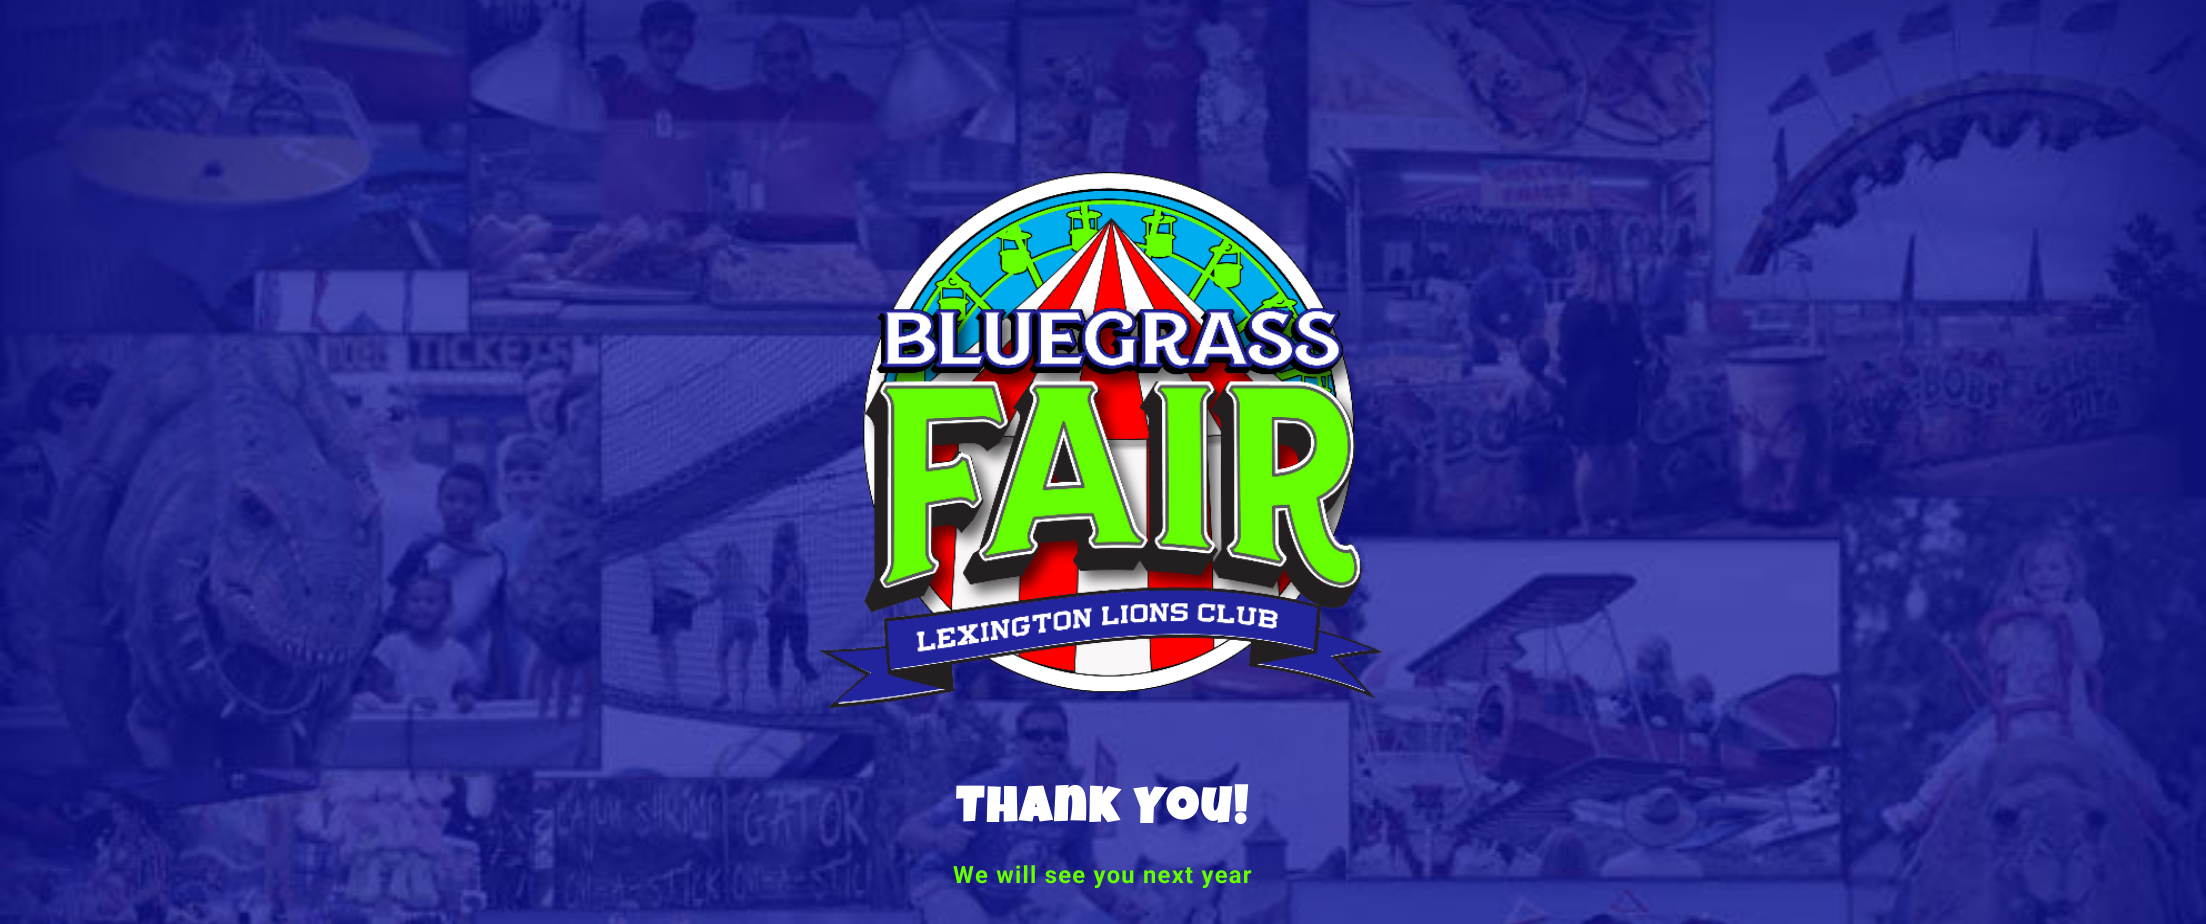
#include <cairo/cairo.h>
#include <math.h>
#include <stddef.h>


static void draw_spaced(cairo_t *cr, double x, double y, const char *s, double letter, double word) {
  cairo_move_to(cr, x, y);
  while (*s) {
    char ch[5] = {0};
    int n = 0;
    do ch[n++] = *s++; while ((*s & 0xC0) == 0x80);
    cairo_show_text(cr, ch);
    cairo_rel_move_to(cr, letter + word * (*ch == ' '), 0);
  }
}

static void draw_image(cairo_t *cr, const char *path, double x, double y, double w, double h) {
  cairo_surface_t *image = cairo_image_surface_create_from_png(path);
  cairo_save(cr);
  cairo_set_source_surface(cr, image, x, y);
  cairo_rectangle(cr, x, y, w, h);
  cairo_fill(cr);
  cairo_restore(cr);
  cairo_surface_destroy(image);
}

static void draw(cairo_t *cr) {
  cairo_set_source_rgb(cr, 1, 1, 1);
  cairo_paint(cr);
  draw_image(cr, "images/1.png", 0, 0, 2206, 924);
  draw_image(cr, "images/2.png", 819, 172, 565, 536);
  cairo_select_font_face(cr, "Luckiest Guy", CAIRO_FONT_SLANT_NORMAL, CAIRO_FONT_WEIGHT_BOLD);
  cairo_set_font_size(cr, 50);
  cairo_set_source_rgb(cr, 1, 1, 1);
  draw_spaced(cr, 956, 822, "Thank You!", 2.5, 0);
  cairo_select_font_face(cr, "Roboto", CAIRO_FONT_SLANT_NORMAL, CAIRO_FONT_WEIGHT_BOLD);
  cairo_set_font_size(cr, 23.75);
  cairo_set_source_rgb(cr, 101 / 255.0, 1, 0);
  draw_spaced(cr, 953, 883, "We will see you next year", 1.25, 0);
}

int main(void) {
  cairo_surface_t *surface = cairo_image_surface_create(CAIRO_FORMAT_RGB24, 2206, 924);
  cairo_t *cr = cairo_create(surface);
  cairo_font_options_t *options = cairo_font_options_create();
  cairo_font_options_set_hint_metrics(options, CAIRO_HINT_METRICS_OFF);
  cairo_font_options_set_hint_style(options, CAIRO_HINT_STYLE_NONE);
  cairo_set_font_options(cr, options);
  cairo_set_miter_limit(cr, 4);
  draw(cr);
  cairo_surface_write_to_png(surface, "out.png");
  cairo_font_options_destroy(options);
  cairo_destroy(cr);
  cairo_surface_destroy(surface);
  return 0;
}
